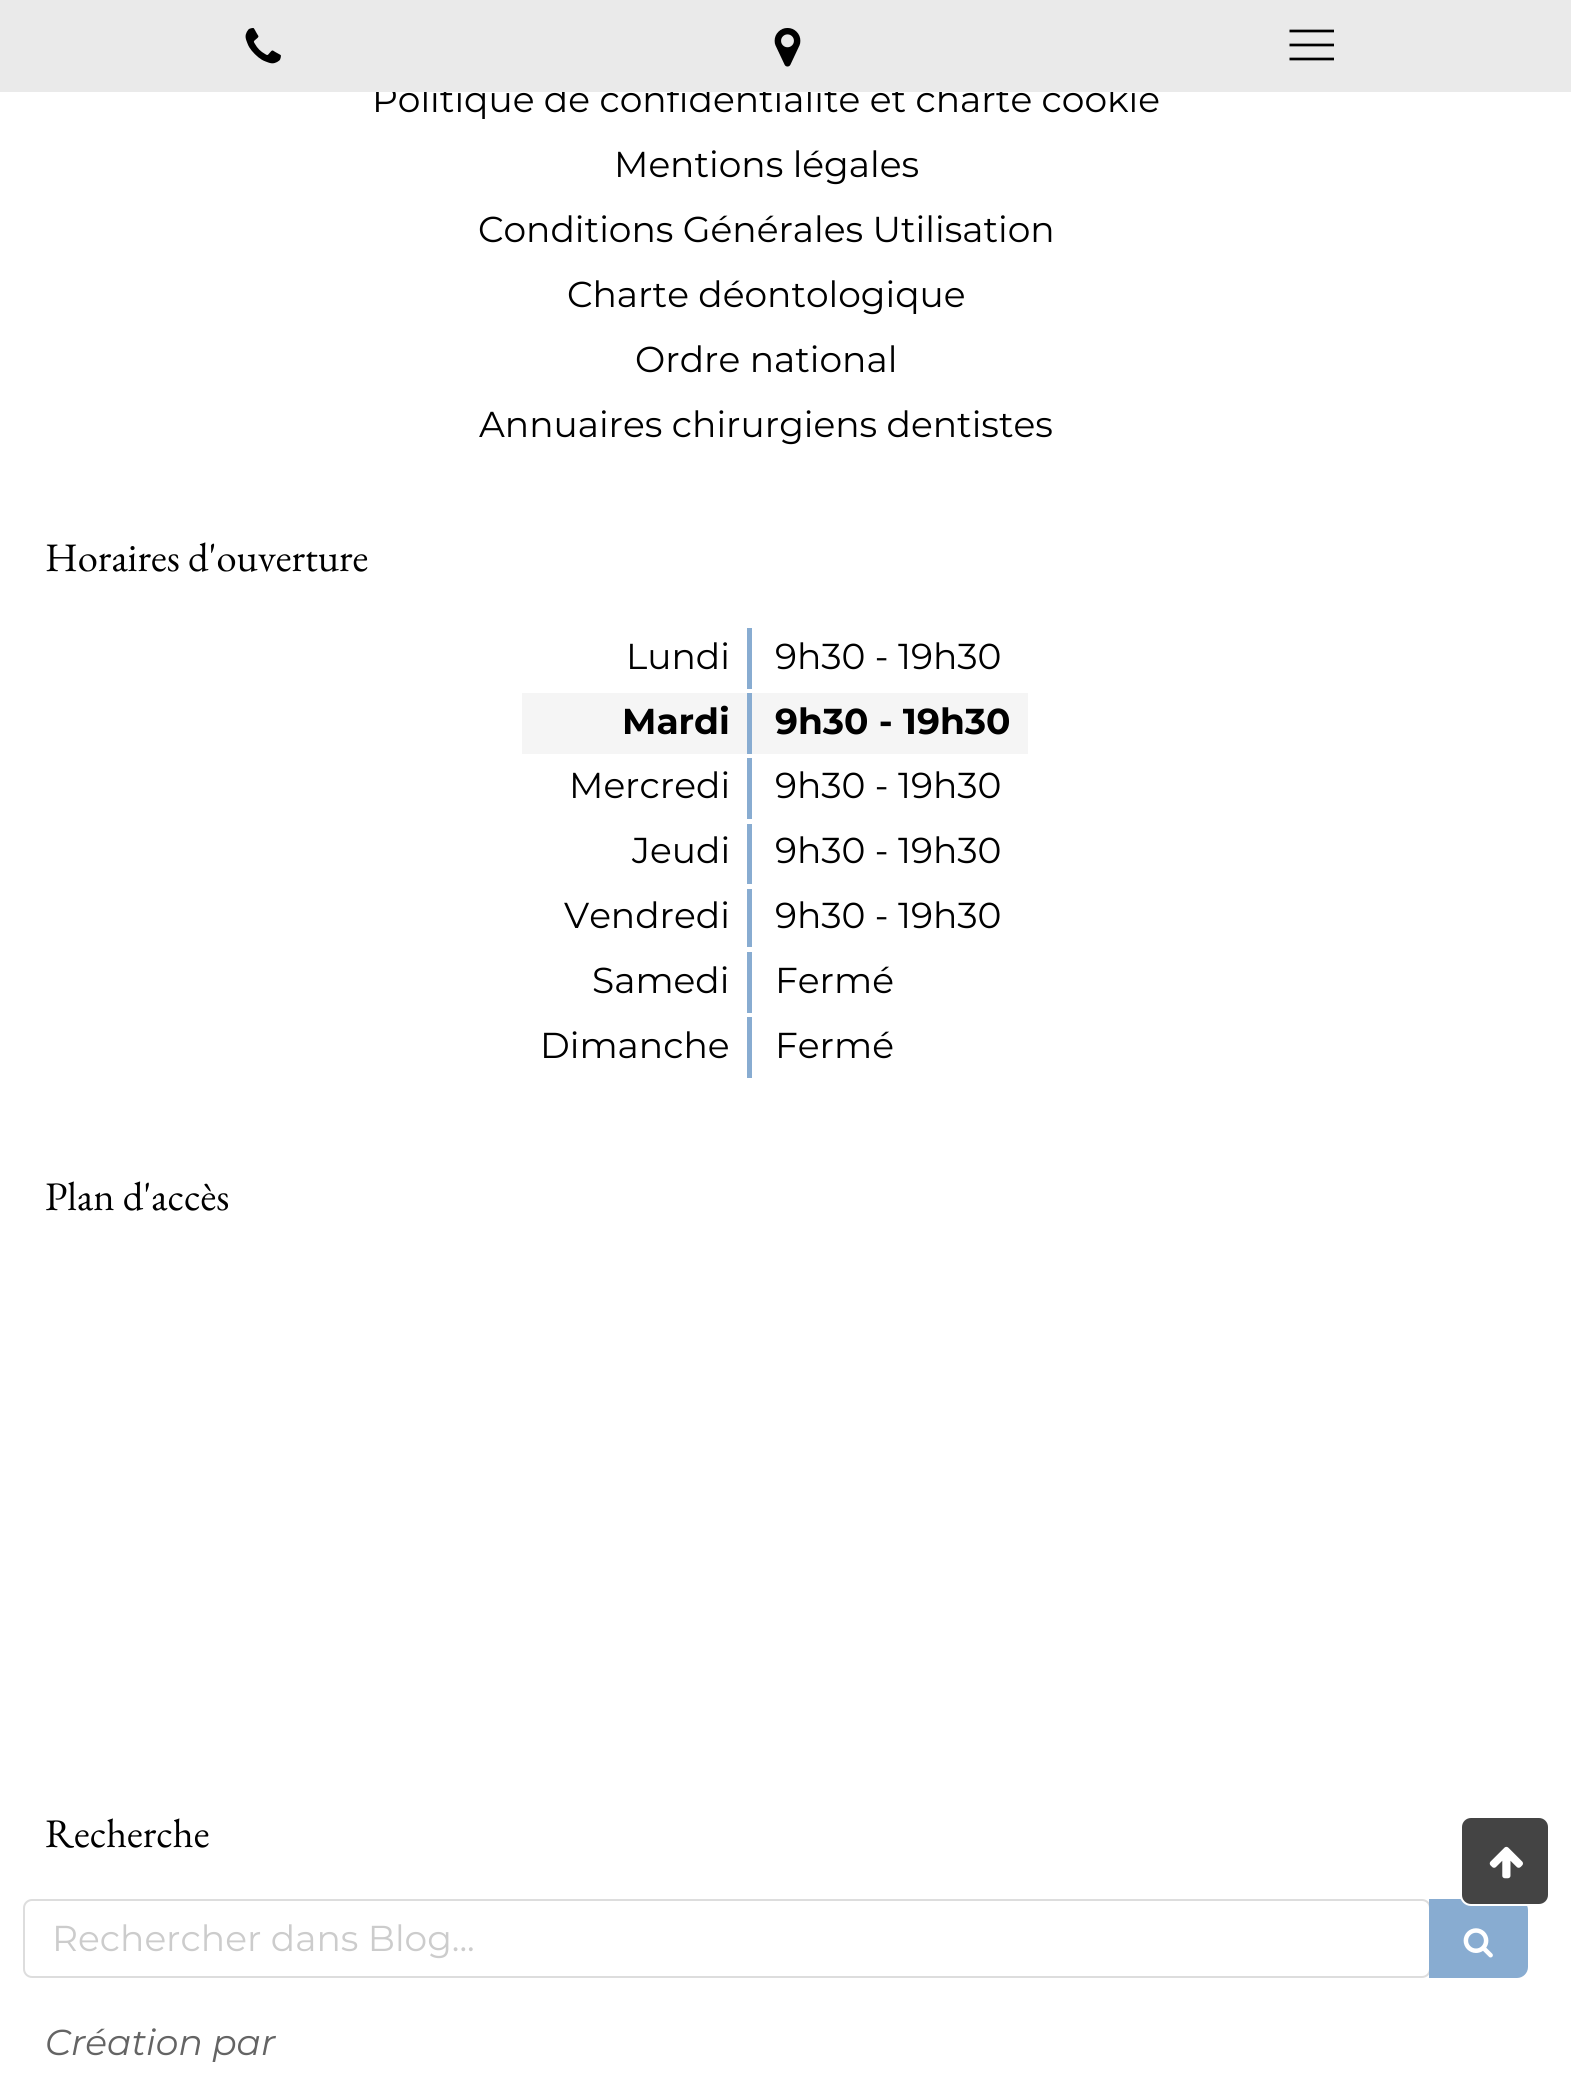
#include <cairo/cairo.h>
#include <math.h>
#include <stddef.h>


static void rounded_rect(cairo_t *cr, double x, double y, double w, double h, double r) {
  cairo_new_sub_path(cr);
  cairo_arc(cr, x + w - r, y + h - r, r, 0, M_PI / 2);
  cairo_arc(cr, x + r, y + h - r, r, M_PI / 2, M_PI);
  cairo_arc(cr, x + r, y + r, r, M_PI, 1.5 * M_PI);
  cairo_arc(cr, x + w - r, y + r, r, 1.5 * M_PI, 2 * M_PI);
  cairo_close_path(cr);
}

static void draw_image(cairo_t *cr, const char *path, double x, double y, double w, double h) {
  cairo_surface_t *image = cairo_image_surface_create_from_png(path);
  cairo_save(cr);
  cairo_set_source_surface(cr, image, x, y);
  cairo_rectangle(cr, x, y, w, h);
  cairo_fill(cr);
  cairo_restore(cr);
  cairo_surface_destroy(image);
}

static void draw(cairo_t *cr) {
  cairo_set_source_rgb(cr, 1, 1, 1);
  cairo_paint(cr);
  cairo_set_source_rgb(cr, 136 / 255.0, 172 / 255.0, 209 / 255.0);
  cairo_rectangle(cr, 747, 628, 5, 61);
  cairo_fill(cr);
  cairo_set_source_rgb(cr, 245 / 255.0, 245 / 255.0, 245 / 255.0);
  cairo_rectangle(cr, 522, 693, 506, 61);
  cairo_fill(cr);
  cairo_set_source_rgb(cr, 136 / 255.0, 172 / 255.0, 209 / 255.0);
  cairo_rectangle(cr, 747, 693, 5, 61);
  cairo_fill(cr);
  cairo_rectangle(cr, 747, 758, 5, 61);
  cairo_fill(cr);
  cairo_rectangle(cr, 747, 824, 5, 60);
  cairo_fill(cr);
  cairo_rectangle(cr, 747, 889, 5, 58);
  cairo_fill(cr);
  cairo_rectangle(cr, 747, 952, 5, 61);
  cairo_fill(cr);
  cairo_rectangle(cr, 747, 1017, 5, 61);
  cairo_fill(cr);
  rounded_rect(cr, 24, 1900, 1406, 77, 8);
  cairo_set_source_rgb(cr, 221 / 255.0, 221 / 255.0, 221 / 255.0);
  cairo_stroke(cr);
  cairo_set_source_rgb(cr, 136 / 255.0, 172 / 255.0, 209 / 255.0);
  cairo_new_path(cr);
  cairo_move_to(cr, 1429, 1899);
  cairo_line_to(cr, 1517, 1899);
  cairo_curve_to(cr, 1523, 1899, 1528, 1904, 1528, 1910);
  cairo_line_to(cr, 1528, 1967);
  cairo_curve_to(cr, 1528, 1973, 1523, 1978, 1517, 1978);
  cairo_line_to(cr, 1429, 1978);
  cairo_close_path(cr);
  cairo_fill(cr);
  draw_image(cr, "images/3.png", 1463, 1928, 30, 30);
  cairo_set_source_rgb(cr, 68 / 255.0, 68 / 255.0, 68 / 255.0);
  rounded_rect(cr, 1461, 1817, 88, 88, 10);
  cairo_fill_preserve(cr);
  cairo_set_source_rgb(cr, 1, 1, 1);
  cairo_stroke(cr);
  draw_image(cr, "images/4.png", 1489, 1846, 34, 33);
  cairo_select_font_face(cr, "Montserrat", CAIRO_FONT_SLANT_NORMAL, CAIRO_FONT_WEIGHT_NORMAL);
  cairo_set_font_size(cr, 36);
  cairo_set_source_rgb(cr, 0, 0, 0);
  cairo_move_to(cr, 372, 112);
  cairo_show_text(cr, "Politique de confidentialité et charte cookie");
  cairo_set_source_rgb(cr, 234 / 255.0, 234 / 255.0, 234 / 255.0);
  cairo_rectangle(cr, 0, 0, 1571, 92);
  cairo_fill(cr);
  cairo_new_path(cr);
  cairo_move_to(cr, 1289.5, 45);
  cairo_line_to(cr, 1334, 45);
  cairo_move_to(cr, 1289.5, 31);
  cairo_line_to(cr, 1334, 31);
  cairo_move_to(cr, 1289.5, 59);
  cairo_line_to(cr, 1334, 59);
  cairo_set_source_rgb(cr, 0, 0, 0);
  cairo_set_line_width(cr, 2.7);
  cairo_stroke(cr);
  draw_image(cr, "images/2.png", 774, 28, 27, 39);
  draw_image(cr, "images/1.png", 245, 28, 36, 36);
  cairo_move_to(cr, 614, 177);
  cairo_show_text(cr, "Mentions légales");
  cairo_move_to(cr, 478, 242);
  cairo_show_text(cr, "Conditions Générales Utilisation");
  cairo_move_to(cr, 567, 307);
  cairo_show_text(cr, "Charte déontologique");
  cairo_move_to(cr, 635, 372);
  cairo_show_text(cr, "Ordre national");
  cairo_move_to(cr, 479, 437);
  cairo_show_text(cr, "Annuaires chirurgiens dentistes");
  cairo_select_font_face(cr, "EB Garamond", CAIRO_FONT_SLANT_NORMAL, CAIRO_FONT_WEIGHT_NORMAL);
  cairo_set_font_size(cr, 40.5);
  cairo_move_to(cr, 45, 571);
  cairo_show_text(cr, "Horaires d'ouverture");
  cairo_select_font_face(cr, "Montserrat", CAIRO_FONT_SLANT_NORMAL, CAIRO_FONT_WEIGHT_NORMAL);
  cairo_set_font_size(cr, 36);
  cairo_move_to(cr, 626, 669);
  cairo_show_text(cr, "Lundi");
  cairo_move_to(cr, 775, 669);
  cairo_show_text(cr, "9h30 - 19h30");
  cairo_select_font_face(cr, "Montserrat", CAIRO_FONT_SLANT_NORMAL, CAIRO_FONT_WEIGHT_BOLD);
  cairo_move_to(cr, 622, 734);
  cairo_show_text(cr, "Mardi");
  cairo_move_to(cr, 775, 734);
  cairo_show_text(cr, "9h30 - 19h30");
  cairo_select_font_face(cr, "Montserrat", CAIRO_FONT_SLANT_NORMAL, CAIRO_FONT_WEIGHT_NORMAL);
  cairo_move_to(cr, 569, 798);
  cairo_show_text(cr, "Mercredi");
  cairo_move_to(cr, 775, 798);
  cairo_show_text(cr, "9h30 - 19h30");
  cairo_move_to(cr, 632, 863);
  cairo_show_text(cr, "Jeudi");
  cairo_move_to(cr, 775, 863);
  cairo_show_text(cr, "9h30 - 19h30");
  cairo_move_to(cr, 564, 928);
  cairo_show_text(cr, "Vendredi");
  cairo_move_to(cr, 775, 928);
  cairo_show_text(cr, "9h30 - 19h30");
  cairo_move_to(cr, 592, 993);
  cairo_show_text(cr, "Samedi");
  cairo_move_to(cr, 775, 993);
  cairo_show_text(cr, "Fermé");
  cairo_move_to(cr, 540, 1058);
  cairo_show_text(cr, "Dimanche");
  cairo_move_to(cr, 775, 1058);
  cairo_show_text(cr, "Fermé");
  cairo_select_font_face(cr, "EB Garamond", CAIRO_FONT_SLANT_NORMAL, CAIRO_FONT_WEIGHT_NORMAL);
  cairo_set_font_size(cr, 40.5);
  cairo_move_to(cr, 45, 1210);
  cairo_show_text(cr, "Plan d'accès");
  cairo_move_to(cr, 45, 1847);
  cairo_show_text(cr, "Recherche");
  cairo_select_font_face(cr, "Montserrat", CAIRO_FONT_SLANT_NORMAL, CAIRO_FONT_WEIGHT_NORMAL);
  cairo_set_font_size(cr, 36);
  cairo_set_source_rgb(cr, 204 / 255.0, 204 / 255.0, 204 / 255.0);
  cairo_move_to(cr, 52, 1951);
  cairo_show_text(cr, "Rechercher dans Blog...");
  cairo_select_font_face(cr, "Montserrat", CAIRO_FONT_SLANT_ITALIC, CAIRO_FONT_WEIGHT_NORMAL);
  cairo_set_source_rgb(cr, 100 / 255.0, 100 / 255.0, 100 / 255.0);
  cairo_move_to(cr, 45, 2055);
  cairo_show_text(cr, "Création par");
}

int main(void) {
  cairo_surface_t *surface = cairo_image_surface_create(CAIRO_FORMAT_RGB24, 1571, 2084);
  cairo_t *cr = cairo_create(surface);
  cairo_font_options_t *options = cairo_font_options_create();
  cairo_font_options_set_hint_metrics(options, CAIRO_HINT_METRICS_OFF);
  cairo_font_options_set_hint_style(options, CAIRO_HINT_STYLE_NONE);
  cairo_set_font_options(cr, options);
  cairo_set_miter_limit(cr, 4);
  draw(cr);
  cairo_surface_write_to_png(surface, "out.png");
  cairo_font_options_destroy(options);
  cairo_destroy(cr);
  cairo_surface_destroy(surface);
  return 0;
}
